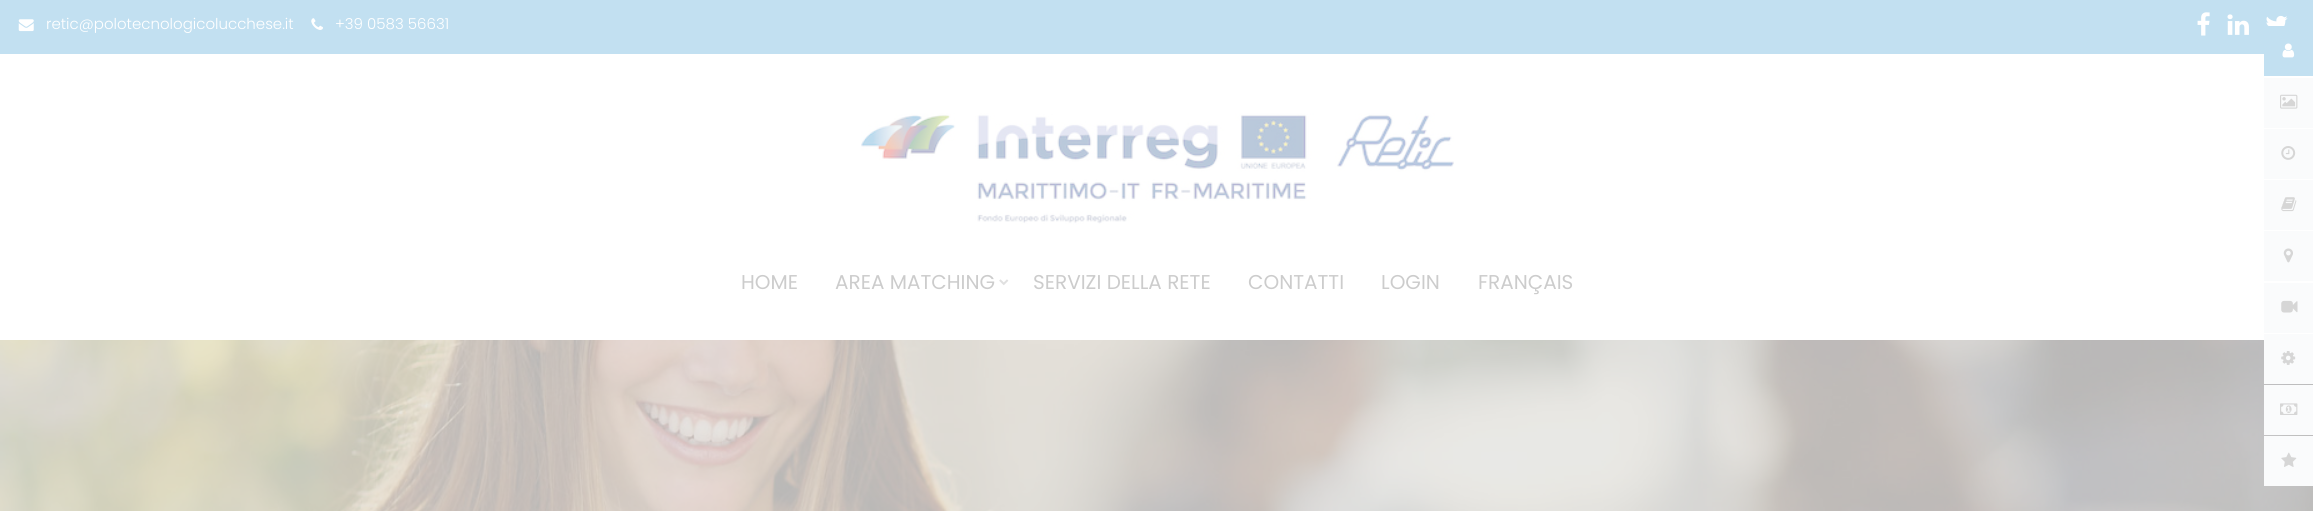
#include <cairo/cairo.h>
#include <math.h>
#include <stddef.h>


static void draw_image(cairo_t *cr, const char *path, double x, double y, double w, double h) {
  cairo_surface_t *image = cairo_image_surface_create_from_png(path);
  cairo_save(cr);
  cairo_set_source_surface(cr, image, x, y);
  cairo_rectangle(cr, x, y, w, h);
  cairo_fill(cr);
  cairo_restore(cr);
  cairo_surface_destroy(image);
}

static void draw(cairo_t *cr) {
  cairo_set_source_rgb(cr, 1, 1, 1);
  cairo_paint(cr);
  cairo_set_source_rgb(cr, 194 / 255.0, 224 / 255.0, 241 / 255.0);
  cairo_rectangle(cr, 0, 0, 2313, 54);
  cairo_fill(cr);
  draw_image(cr, "images/1.png", 18, 19, 16, 13);
  draw_image(cr, "images/2.png", 311, 18, 12, 12);
  draw_image(cr, "images/3.png", 2197, 12, 13, 24);
  draw_image(cr, "images/4.png", 2227, 14, 22, 21);
  draw_image(cr, "images/5.png", 2266, 15, 22, 11);
  draw_image(cr, "images/6.png", 861, 113, 593, 112);
  draw_image(cr, "images/7.png", 999, 279, 10, 7);
  cairo_rectangle(cr, 2264, 54, 49, 22);
  cairo_fill(cr);
  draw_image(cr, "images/8.png", 2282, 43, 13, 15);
  cairo_set_source_rgb(cr, 250 / 255.0, 251 / 255.0, 252 / 255.0);
  cairo_rectangle(cr, 2264, 78, 49, 50);
  cairo_fill(cr);
  draw_image(cr, "images/9.png", 2280, 94, 18, 15);
  cairo_rectangle(cr, 2264, 129, 49, 50);
  cairo_fill(cr);
  draw_image(cr, "images/10.png", 2281, 146, 15, 14);
  cairo_rectangle(cr, 2264, 180, 49, 50);
  cairo_fill(cr);
  draw_image(cr, "images/11.png", 2281, 197, 16, 15);
  cairo_rectangle(cr, 2264, 231, 49, 50);
  cairo_fill(cr);
  draw_image(cr, "images/12.png", 2283, 248, 10, 15);
  cairo_rectangle(cr, 2264, 283, 49, 50);
  cairo_fill(cr);
  draw_image(cr, "images/13.png", 2281, 300, 17, 13);
  draw_image(cr, "images/17.png", 0, 340, 2313, 171);
  cairo_rectangle(cr, 2264, 334, 49, 50);
  cairo_fill(cr);
  draw_image(cr, "images/14.png", 2281, 351, 15, 14);
  cairo_rectangle(cr, 2264, 385, 49, 50);
  cairo_fill(cr);
  draw_image(cr, "images/15.png", 2280, 403, 18, 12);
  cairo_rectangle(cr, 2264, 436, 49, 50);
  cairo_fill(cr);
  draw_image(cr, "images/16.png", 2281, 452, 16, 15);
  cairo_select_font_face(cr, "Poppins Light", CAIRO_FONT_SLANT_NORMAL, CAIRO_FONT_WEIGHT_NORMAL);
  cairo_set_font_size(cr, 15);
  cairo_set_source_rgb(cr, 1, 1, 1);
  cairo_move_to(cr, 46, 29);
  cairo_show_text(cr, "retic@polotecnologicolucchese.it");
  cairo_move_to(cr, 335, 29);
  cairo_show_text(cr, "+39 0583 56631");
  cairo_select_font_face(cr, "Poppins", CAIRO_FONT_SLANT_NORMAL, CAIRO_FONT_WEIGHT_NORMAL);
  cairo_set_font_size(cr, 20);
  cairo_set_source_rgb(cr, 204 / 255.0, 204 / 255.0, 204 / 255.0);
  cairo_move_to(cr, 741, 289);
  cairo_show_text(cr, "HOME");
  cairo_move_to(cr, 835, 289);
  cairo_show_text(cr, "AREA MATCHING");
  cairo_move_to(cr, 1033, 289);
  cairo_show_text(cr, "SERVIZI DELLA RETE");
  cairo_move_to(cr, 1248, 289);
  cairo_show_text(cr, "CONTATTI");
  cairo_move_to(cr, 1381, 289);
  cairo_show_text(cr, "LOGIN");
  cairo_move_to(cr, 1478, 289);
  cairo_show_text(cr, "FRANÇAIS");
}

int main(void) {
  cairo_surface_t *surface = cairo_image_surface_create(CAIRO_FORMAT_RGB24, 2313, 511);
  cairo_t *cr = cairo_create(surface);
  cairo_font_options_t *options = cairo_font_options_create();
  cairo_font_options_set_hint_metrics(options, CAIRO_HINT_METRICS_OFF);
  cairo_font_options_set_hint_style(options, CAIRO_HINT_STYLE_NONE);
  cairo_set_font_options(cr, options);
  cairo_set_miter_limit(cr, 4);
  draw(cr);
  cairo_surface_write_to_png(surface, "out.png");
  cairo_font_options_destroy(options);
  cairo_destroy(cr);
  cairo_surface_destroy(surface);
  return 0;
}
